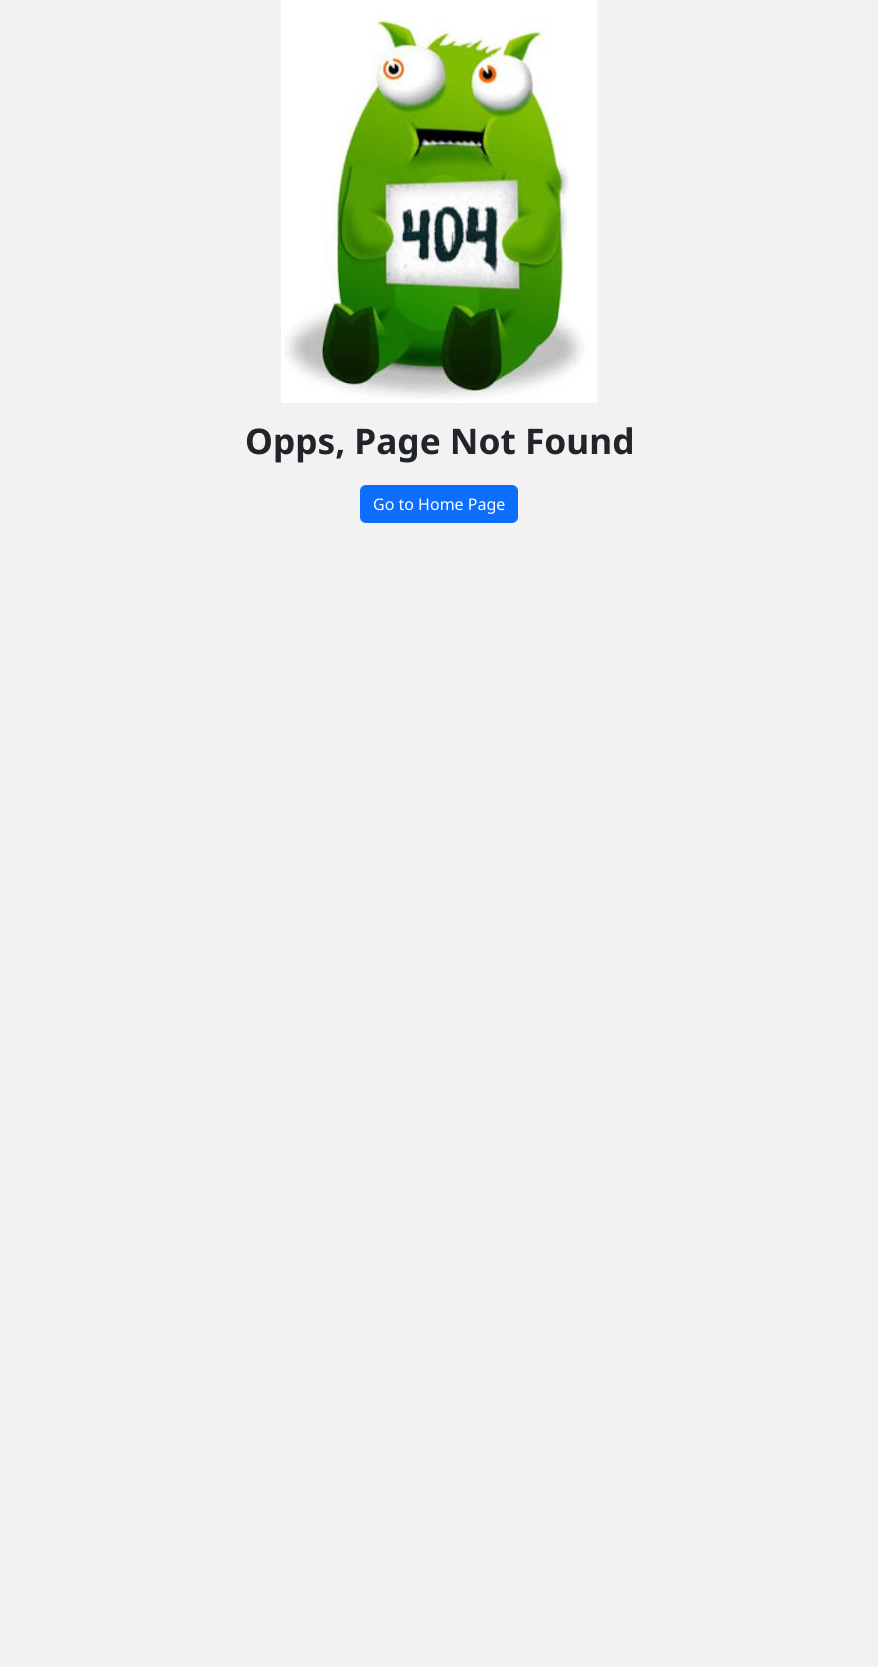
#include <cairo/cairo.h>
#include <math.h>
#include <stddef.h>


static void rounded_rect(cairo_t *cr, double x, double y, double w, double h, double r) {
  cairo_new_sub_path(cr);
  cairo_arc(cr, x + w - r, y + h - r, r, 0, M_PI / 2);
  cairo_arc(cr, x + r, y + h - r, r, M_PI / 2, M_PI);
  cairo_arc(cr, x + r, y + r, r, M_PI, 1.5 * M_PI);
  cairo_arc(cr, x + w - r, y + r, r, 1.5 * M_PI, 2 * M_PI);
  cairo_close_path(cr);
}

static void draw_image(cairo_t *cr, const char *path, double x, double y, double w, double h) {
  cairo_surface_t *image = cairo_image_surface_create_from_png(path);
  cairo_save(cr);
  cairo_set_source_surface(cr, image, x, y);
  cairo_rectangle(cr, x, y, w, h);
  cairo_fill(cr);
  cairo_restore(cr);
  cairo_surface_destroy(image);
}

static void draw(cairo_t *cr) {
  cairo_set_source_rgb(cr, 242 / 255.0, 242 / 255.0, 242 / 255.0);
  cairo_paint(cr);
  draw_image(cr, "images/1.png", 281, 0, 316, 403);
  cairo_set_source_rgb(cr, 13 / 255.0, 110 / 255.0, 253 / 255.0);
  rounded_rect(cr, 360.5, 485.5, 157, 37, 5.5);
  cairo_fill_preserve(cr);
  cairo_set_line_width(cr, 1);
  cairo_stroke(cr);
  cairo_select_font_face(cr, "Noto Sans", CAIRO_FONT_SLANT_NORMAL, CAIRO_FONT_WEIGHT_BOLD);
  cairo_set_font_size(cr, 35.25);
  cairo_set_source_rgb(cr, 33 / 255.0, 37 / 255.0, 41 / 255.0);
  cairo_move_to(cr, 245, 454);
  cairo_show_text(cr, "Opps, Page Not Found");
  cairo_select_font_face(cr, "Noto Sans", CAIRO_FONT_SLANT_NORMAL, CAIRO_FONT_WEIGHT_NORMAL);
  cairo_set_font_size(cr, 16);
  cairo_set_source_rgb(cr, 1, 1, 1);
  cairo_move_to(cr, 373, 510);
  cairo_show_text(cr, "Go to Home Page");
}

int main(void) {
  cairo_surface_t *surface = cairo_image_surface_create(CAIRO_FORMAT_RGB24, 878, 1667);
  cairo_t *cr = cairo_create(surface);
  cairo_font_options_t *options = cairo_font_options_create();
  cairo_font_options_set_hint_metrics(options, CAIRO_HINT_METRICS_OFF);
  cairo_font_options_set_hint_style(options, CAIRO_HINT_STYLE_NONE);
  cairo_set_font_options(cr, options);
  cairo_set_miter_limit(cr, 4);
  draw(cr);
  cairo_surface_write_to_png(surface, "out.png");
  cairo_font_options_destroy(options);
  cairo_destroy(cr);
  cairo_surface_destroy(surface);
  return 0;
}
